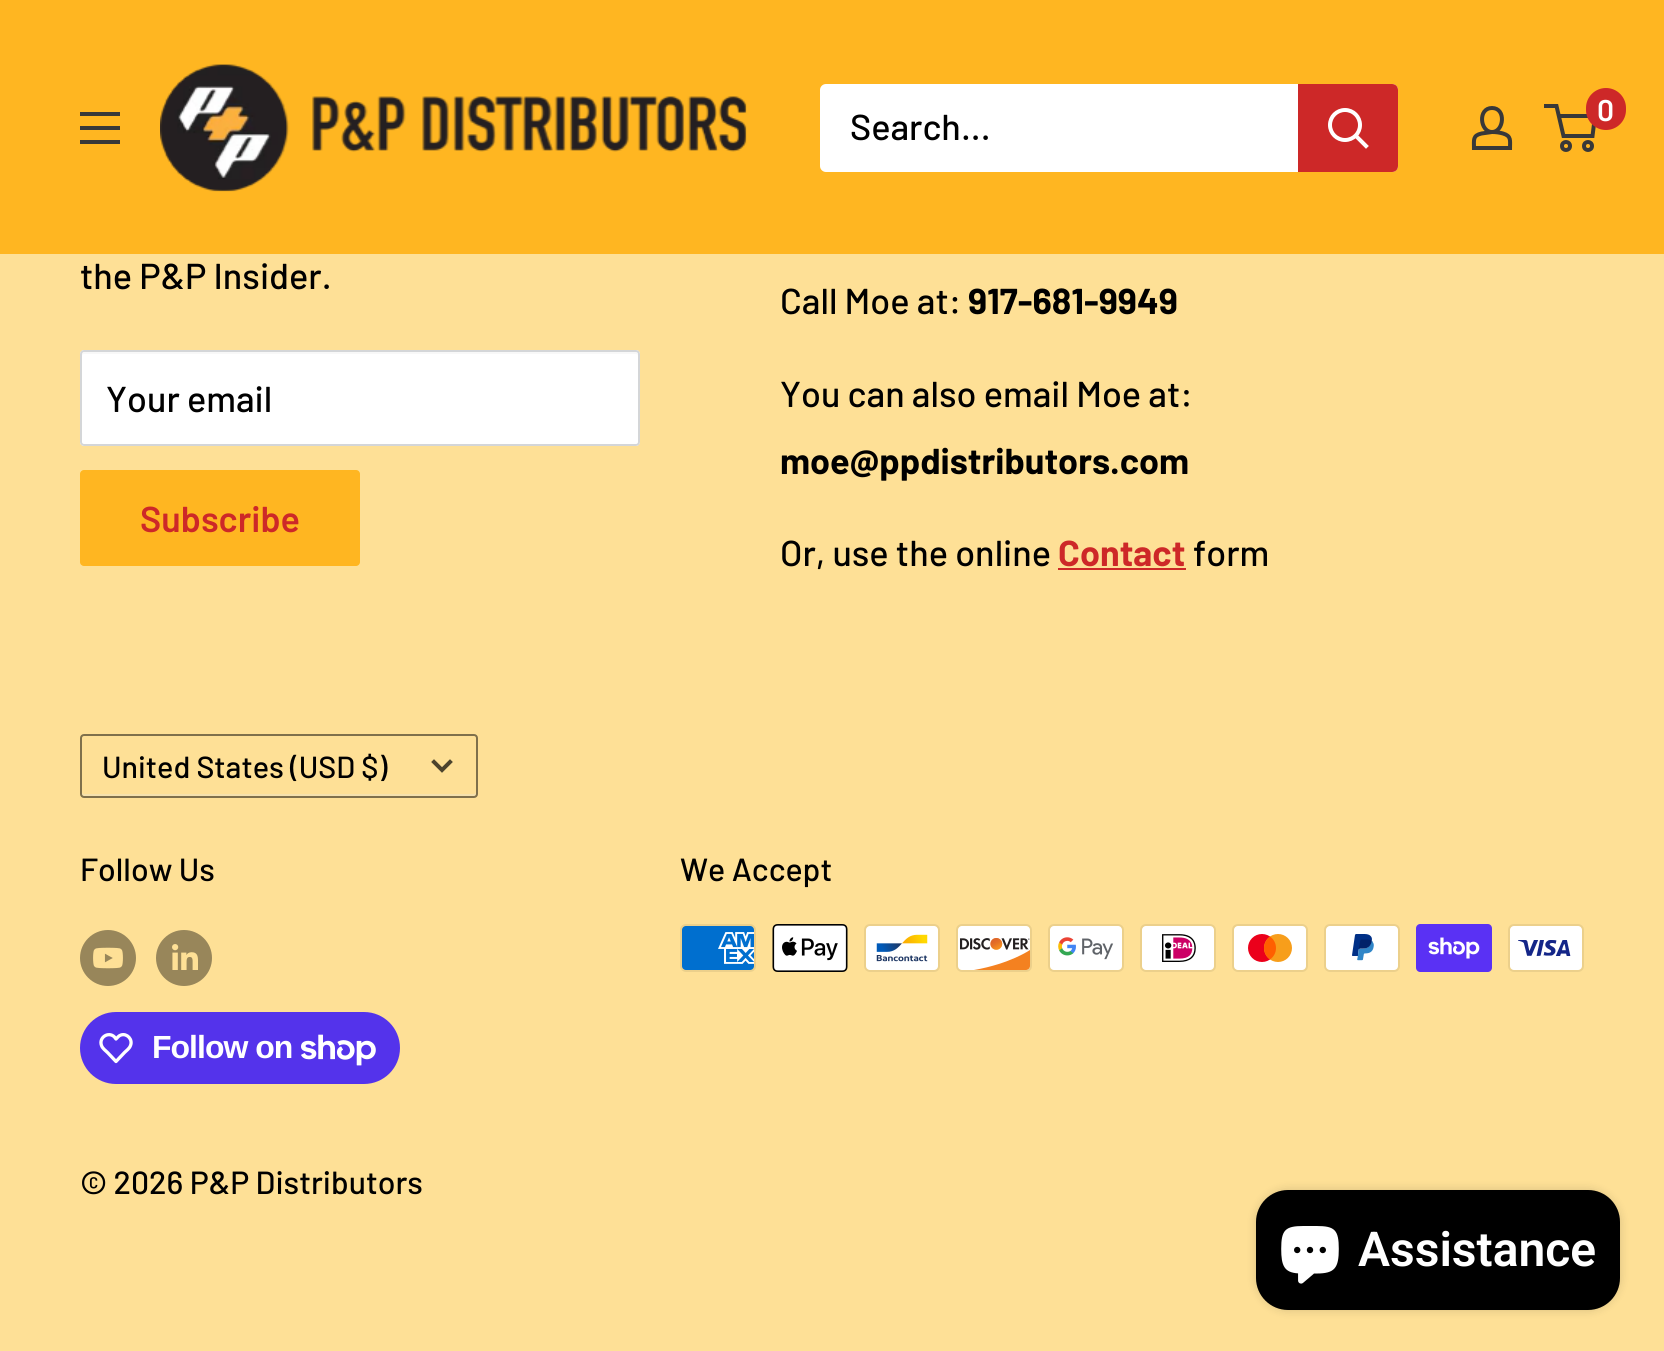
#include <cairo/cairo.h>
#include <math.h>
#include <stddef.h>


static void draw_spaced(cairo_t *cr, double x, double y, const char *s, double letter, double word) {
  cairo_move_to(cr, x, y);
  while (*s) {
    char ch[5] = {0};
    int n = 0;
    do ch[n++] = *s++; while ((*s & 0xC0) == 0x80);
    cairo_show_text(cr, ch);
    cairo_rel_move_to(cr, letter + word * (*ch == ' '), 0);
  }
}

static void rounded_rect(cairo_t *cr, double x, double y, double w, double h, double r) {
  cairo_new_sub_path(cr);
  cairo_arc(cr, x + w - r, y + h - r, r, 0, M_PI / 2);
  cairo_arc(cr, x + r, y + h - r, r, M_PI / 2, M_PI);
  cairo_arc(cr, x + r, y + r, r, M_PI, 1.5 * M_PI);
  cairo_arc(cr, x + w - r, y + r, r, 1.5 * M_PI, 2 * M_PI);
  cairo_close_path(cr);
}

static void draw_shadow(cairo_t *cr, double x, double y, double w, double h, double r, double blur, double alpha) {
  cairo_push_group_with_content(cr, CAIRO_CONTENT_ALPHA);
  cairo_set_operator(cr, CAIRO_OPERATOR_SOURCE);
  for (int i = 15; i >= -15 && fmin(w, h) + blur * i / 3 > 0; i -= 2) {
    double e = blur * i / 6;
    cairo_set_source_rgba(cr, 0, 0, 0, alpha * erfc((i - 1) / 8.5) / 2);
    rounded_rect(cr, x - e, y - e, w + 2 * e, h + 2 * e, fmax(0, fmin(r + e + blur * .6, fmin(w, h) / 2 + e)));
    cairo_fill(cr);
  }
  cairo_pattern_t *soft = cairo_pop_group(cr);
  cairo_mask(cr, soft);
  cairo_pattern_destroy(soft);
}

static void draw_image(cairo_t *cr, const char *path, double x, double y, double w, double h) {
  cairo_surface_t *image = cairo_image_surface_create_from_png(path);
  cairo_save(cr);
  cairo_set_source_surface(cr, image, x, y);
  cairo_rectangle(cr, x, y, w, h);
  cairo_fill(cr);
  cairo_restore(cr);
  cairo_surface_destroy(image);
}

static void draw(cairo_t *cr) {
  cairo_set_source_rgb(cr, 254 / 255.0, 224 / 255.0, 150 / 255.0);
  cairo_paint(cr);
  cairo_set_source_rgb(cr, 1, 182 / 255.0, 33 / 255.0);
  cairo_rectangle(cr, 0, 0, 1664, 254);
  cairo_fill(cr);
  cairo_set_source_rgb(cr, 56 / 255.0, 56 / 255.0, 57 / 255.0);
  cairo_set_fill_rule(cr, CAIRO_FILL_RULE_EVEN_ODD);
  cairo_new_path(cr);
  cairo_move_to(cr, 80, 140);
  cairo_line_to(cr, 120, 140);
  cairo_line_to(cr, 120, 144);
  cairo_line_to(cr, 80, 144);
  cairo_close_path(cr);
  cairo_move_to(cr, 80, 112);
  cairo_line_to(cr, 120, 112);
  cairo_line_to(cr, 120, 116);
  cairo_line_to(cr, 80, 116);
  cairo_close_path(cr);
  cairo_move_to(cr, 80, 126);
  cairo_line_to(cr, 120, 126);
  cairo_line_to(cr, 120, 130);
  cairo_line_to(cr, 80, 130);
  cairo_close_path(cr);
  cairo_fill(cr);
  draw_image(cr, "images/1.png", 160, 64, 587, 128);
  cairo_set_source_rgb(cr, 1, 1, 1);
  rounded_rect(cr, 820, 84, 578, 88, 6);
  cairo_fill(cr);
  cairo_set_source_rgb(cr, 205 / 255.0, 40 / 255.0, 40 / 255.0);
  cairo_new_path(cr);
  cairo_move_to(cr, 1298, 84);
  cairo_line_to(cr, 1392, 84);
  cairo_curve_to(cr, 1395.5, 84, 1398, 86.5, 1398, 90);
  cairo_line_to(cr, 1398, 166);
  cairo_curve_to(cr, 1398, 169.5, 1395.5, 172, 1392, 172);
  cairo_line_to(cr, 1298, 172);
  cairo_close_path(cr);
  cairo_fill(cr);
  cairo_new_path(cr);
  cairo_move_to(cr, 1366, 146);
  cairo_line_to(cr, 1356, 136);
  cairo_set_source_rgb(cr, 1, 1, 1);
  cairo_set_line_width(cr, 4);
  cairo_set_line_cap(cr, CAIRO_LINE_CAP_SQUARE);
  cairo_stroke(cr);
  cairo_arc(cr, 1345, 125, 15, 0, 2 * M_PI);
  cairo_set_line_cap(cr, CAIRO_LINE_CAP_BUTT);
  cairo_stroke(cr);
  cairo_new_path(cr);
  cairo_move_to(cr, 1492, 132);
  cairo_curve_to(cr, 1496, 132, 1499.5, 132.5, 1503, 133.5);
  cairo_curve_to(cr, 1511.5, 136, 1510, 140.5, 1510, 148);
  cairo_line_to(cr, 1474, 148);
  cairo_curve_to(cr, 1474, 140, 1472.5, 135.5, 1481.5, 133.5);
  cairo_close_path(cr);
  cairo_move_to(cr, 1492, 132);
  cairo_curve_to(cr, 1480, 132, 1477.5, 108, 1492, 108);
  cairo_curve_to(cr, 1506.5, 108, 1504, 132, 1492, 132);
  cairo_close_path(cr);
  cairo_set_source_rgb(cr, 56 / 255.0, 56 / 255.0, 57 / 255.0);
  cairo_stroke(cr);
  cairo_arc(cr, 1566, 146, 4, 0, 2 * M_PI);
  cairo_stroke(cr);
  cairo_arc(cr, 1588, 146, 4, 0, 2 * M_PI);
  cairo_stroke(cr);
  cairo_new_path(cr);
  cairo_move_to(cr, 1558.5, 116);
  cairo_line_to(cr, 1595, 116);
  cairo_line_to(cr, 1592.5, 136);
  cairo_line_to(cr, 1563.5, 136);
  cairo_line_to(cr, 1556.5, 106);
  cairo_line_to(cr, 1544, 106);
  cairo_stroke(cr);
  cairo_set_source_rgb(cr, 205 / 255.0, 40 / 255.0, 40 / 255.0);
  rounded_rect(cr, 1586, 88, 40, 42, 20);
  cairo_fill(cr);
  cairo_set_source_rgb(cr, 1, 1, 1);
  rounded_rect(cr, 80, 350, 560, 96, 4);
  cairo_fill(cr);
  cairo_set_source_rgb(cr, 248 / 255.0, 248 / 255.0, 248 / 255.0);
  cairo_set_fill_rule(cr, CAIRO_FILL_RULE_WINDING);
  cairo_new_path(cr);
  cairo_move_to(cr, 84, 354);
  cairo_line_to(cr, 636, 354);
  cairo_curve_to(cr, 637, 354, 638, 355, 638, 356);
  cairo_curve_to(cr, 638, 354, 638, 352, 636, 352);
  cairo_line_to(cr, 84, 352);
  cairo_line_to(cr, 82, 353);
  cairo_line_to(cr, 82, 356);
  cairo_curve_to(cr, 82, 355, 83, 354, 84, 354);
  cairo_close_path(cr);
  cairo_fill(cr);
  rounded_rect(cr, 81, 351, 558, 94, 3);
  cairo_set_source_rgb(cr, 212 / 255.0, 214 / 255.0, 216 / 255.0);
  cairo_set_line_width(cr, 2);
  cairo_stroke(cr);
  cairo_set_source_rgb(cr, 1, 182 / 255.0, 33 / 255.0);
  rounded_rect(cr, 80, 470, 280, 96, 4);
  cairo_fill(cr);
  cairo_set_source_rgb(cr, 205 / 255.0, 40 / 255.0, 40 / 255.0);
  cairo_rectangle(cr, 1058, 568, 128, 2);
  cairo_fill(cr);
  cairo_set_source_rgb(cr, 245 / 255.0, 225 / 255.0, 173 / 255.0);
  cairo_new_path(cr);
  cairo_move_to(cr, 82, 792);
  cairo_line_to(cr, 82, 794);
  cairo_curve_to(cr, 82, 795, 83, 796, 84, 796);
  cairo_line_to(cr, 474, 796);
  cairo_curve_to(cr, 475, 796, 476, 795, 476, 794);
  cairo_line_to(cr, 476, 792);
  cairo_curve_to(cr, 476, 793, 475, 794, 474, 794);
  cairo_line_to(cr, 84, 794);
  cairo_curve_to(cr, 83, 794, 82, 793, 82, 792);
  cairo_close_path(cr);
  cairo_fill(cr);
  rounded_rect(cr, 81, 735, 396, 62, 3);
  cairo_set_source_rgba(cr, 0, 0, 0, 0.5);
  cairo_stroke(cr);
  cairo_new_path(cr);
  cairo_move_to(cr, 450, 762);
  cairo_line_to(cr, 442, 770);
  cairo_line_to(cr, 434, 762);
  cairo_set_source_rgb(cr, 76 / 255.0, 67 / 255.0, 45 / 255.0);
  cairo_set_line_width(cr, 4);
  cairo_set_line_cap(cr, CAIRO_LINE_CAP_SQUARE);
  cairo_stroke(cr);
  draw_image(cr, "images/2.png", 80, 930, 56, 56);
  draw_image(cr, "images/3.png", 156, 930, 56, 56);
  cairo_set_source_rgb(cr, 84 / 255.0, 51 / 255.0, 235 / 255.0);
  rounded_rect(cr, 80, 1012, 320, 72, 36);
  cairo_fill(cr);
  cairo_new_path(cr);
  cairo_move_to(cr, 114.5, 1037);
  cairo_line_to(cr, 116, 1039);
  cairo_curve_to(cr, 117.5, 1037.5, 119, 1035.5, 121, 1035);
  cairo_curve_to(cr, 127, 1033, 133, 1039.5, 130.5, 1045.5);
  cairo_curve_to(cr, 129.5, 1048.5, 126.5, 1050.5, 124.5, 1052.5);
  cairo_line_to(cr, 116, 1061.5);
  cairo_line_to(cr, 107.5, 1052.5);
  cairo_curve_to(cr, 105.5, 1050.5, 102.5, 1048.5, 101.5, 1045.5);
  cairo_curve_to(cr, 98.5, 1037.5, 108.5, 1031, 114.5, 1037);
  cairo_close_path(cr);
  cairo_set_source_rgb(cr, 1, 1, 1);
  cairo_set_line_width(cr, 3.3);
  cairo_set_line_cap(cr, CAIRO_LINE_CAP_BUTT);
  cairo_set_line_join(cr, CAIRO_LINE_JOIN_ROUND);
  cairo_stroke(cr);
  draw_image(cr, "images/4.png", 301, 1034, 75, 32);
  draw_image(cr, "images/5.png", 680, 924, 76, 48);
  draw_image(cr, "images/6.png", 772, 924, 76, 48);
  draw_image(cr, "images/7.png", 864, 924, 76, 48);
  draw_image(cr, "images/8.png", 956, 924, 76, 48);
  draw_image(cr, "images/9.png", 1048, 924, 76, 48);
  draw_image(cr, "images/10.png", 1140, 924, 76, 48);
  draw_image(cr, "images/11.png", 1232, 924, 76, 48);
  draw_image(cr, "images/12.png", 1324, 924, 76, 48);
  draw_image(cr, "images/13.png", 1416, 924, 76, 48);
  draw_image(cr, "images/14.png", 1508, 924, 76, 48);
  cairo_set_source_rgb(cr, 0, 0, 0);
  draw_shadow(cr, 1256, 1190, 364, 120, 32, 5, 0.15);
  cairo_set_source_rgb(cr, 0, 0, 0);
  rounded_rect(cr, 1256, 1190, 364, 120, 32);
  cairo_fill(cr);
  draw_image(cr, "images/15.png", 1281, 1226, 58, 58);
  cairo_select_font_face(cr, "Barlow Medium", CAIRO_FONT_SLANT_NORMAL, CAIRO_FONT_WEIGHT_NORMAL);
  cairo_set_font_size(cr, 36);
  cairo_move_to(cr, 850, 140);
  cairo_show_text(cr, "Search...");
  cairo_select_font_face(cr, "Barlow SemiBold", CAIRO_FONT_SLANT_NORMAL, CAIRO_FONT_WEIGHT_NORMAL);
  cairo_set_font_size(cr, 30);
  cairo_set_source_rgb(cr, 1, 1, 1);
  cairo_move_to(cr, 1597, 121);
  cairo_show_text(cr, "0");
  cairo_select_font_face(cr, "Barlow Medium", CAIRO_FONT_SLANT_NORMAL, CAIRO_FONT_WEIGHT_NORMAL);
  cairo_set_font_size(cr, 36);
  cairo_set_source_rgb(cr, 0, 0, 0);
  cairo_move_to(cr, 80, 289);
  cairo_show_text(cr, "the P&P Insider.");
  cairo_move_to(cr, 106, 412);
  cairo_show_text(cr, "Your email");
  cairo_select_font_face(cr, "Barlow SemiBold", CAIRO_FONT_SLANT_NORMAL, CAIRO_FONT_WEIGHT_NORMAL);
  cairo_set_source_rgb(cr, 205 / 255.0, 40 / 255.0, 40 / 255.0);
  cairo_move_to(cr, 140, 532);
  cairo_show_text(cr, "Subscribe");
  cairo_select_font_face(cr, "Barlow Medium", CAIRO_FONT_SLANT_NORMAL, CAIRO_FONT_WEIGHT_NORMAL);
  cairo_set_source_rgb(cr, 0, 0, 0);
  cairo_move_to(cr, 780, 314);
  cairo_show_text(cr, "Call Moe at:");
  cairo_select_font_face(cr, "Barlow", CAIRO_FONT_SLANT_NORMAL, CAIRO_FONT_WEIGHT_BOLD);
  cairo_move_to(cr, 968, 314);
  cairo_show_text(cr, "917-681-9949");
  cairo_select_font_face(cr, "Barlow Medium", CAIRO_FONT_SLANT_NORMAL, CAIRO_FONT_WEIGHT_NORMAL);
  cairo_move_to(cr, 780, 407);
  cairo_show_text(cr, "You can also email Moe at:");
  cairo_select_font_face(cr, "Barlow", CAIRO_FONT_SLANT_NORMAL, CAIRO_FONT_WEIGHT_BOLD);
  cairo_move_to(cr, 780, 474);
  cairo_show_text(cr, "moe@ppdistributors.com");
  cairo_select_font_face(cr, "Barlow Medium", CAIRO_FONT_SLANT_NORMAL, CAIRO_FONT_WEIGHT_NORMAL);
  cairo_move_to(cr, 780, 566);
  cairo_show_text(cr, "Or, use the online");
  cairo_select_font_face(cr, "Barlow", CAIRO_FONT_SLANT_NORMAL, CAIRO_FONT_WEIGHT_BOLD);
  cairo_set_source_rgb(cr, 205 / 255.0, 40 / 255.0, 40 / 255.0);
  cairo_move_to(cr, 1058, 566);
  cairo_show_text(cr, "Contact");
  cairo_select_font_face(cr, "Barlow Medium", CAIRO_FONT_SLANT_NORMAL, CAIRO_FONT_WEIGHT_NORMAL);
  cairo_set_source_rgb(cr, 0, 0, 0);
  cairo_move_to(cr, 1193, 566);
  cairo_show_text(cr, "form");
  cairo_set_font_size(cr, 30.5);
  cairo_move_to(cr, 102, 778);
  cairo_show_text(cr, "United States (USD $)");
  cairo_set_font_size(cr, 32);
  cairo_move_to(cr, 80, 881);
  cairo_show_text(cr, "Follow Us");
  cairo_select_font_face(cr, "Liberation Sans", CAIRO_FONT_SLANT_NORMAL, CAIRO_FONT_WEIGHT_BOLD);
  cairo_set_source_rgb(cr, 1, 1, 1);
  draw_spaced(cr, 152, 1058, "Follow on", -1, 0);
  cairo_select_font_face(cr, "Barlow Medium", CAIRO_FONT_SLANT_NORMAL, CAIRO_FONT_WEIGHT_NORMAL);
  cairo_set_source_rgb(cr, 0, 0, 0);
  cairo_move_to(cr, 680, 881);
  cairo_show_text(cr, "We Accept");
  cairo_move_to(cr, 80, 1194);
  cairo_show_text(cr, "© 2026 P&P Distributors");
  cairo_select_font_face(cr, "Roboto SemiBold", CAIRO_FONT_SLANT_NORMAL, CAIRO_FONT_WEIGHT_NORMAL);
  cairo_set_font_size(cr, 48);
  cairo_set_source_rgb(cr, 1, 1, 1);
  cairo_move_to(cr, 1358, 1266);
  cairo_show_text(cr, "Assistance");
}

int main(void) {
  cairo_surface_t *surface = cairo_image_surface_create(CAIRO_FORMAT_RGB24, 1664, 1351);
  cairo_t *cr = cairo_create(surface);
  cairo_font_options_t *options = cairo_font_options_create();
  cairo_font_options_set_hint_metrics(options, CAIRO_HINT_METRICS_OFF);
  cairo_font_options_set_hint_style(options, CAIRO_HINT_STYLE_NONE);
  cairo_set_font_options(cr, options);
  cairo_set_miter_limit(cr, 4);
  draw(cr);
  cairo_surface_write_to_png(surface, "out.png");
  cairo_font_options_destroy(options);
  cairo_destroy(cr);
  cairo_surface_destroy(surface);
  return 0;
}
